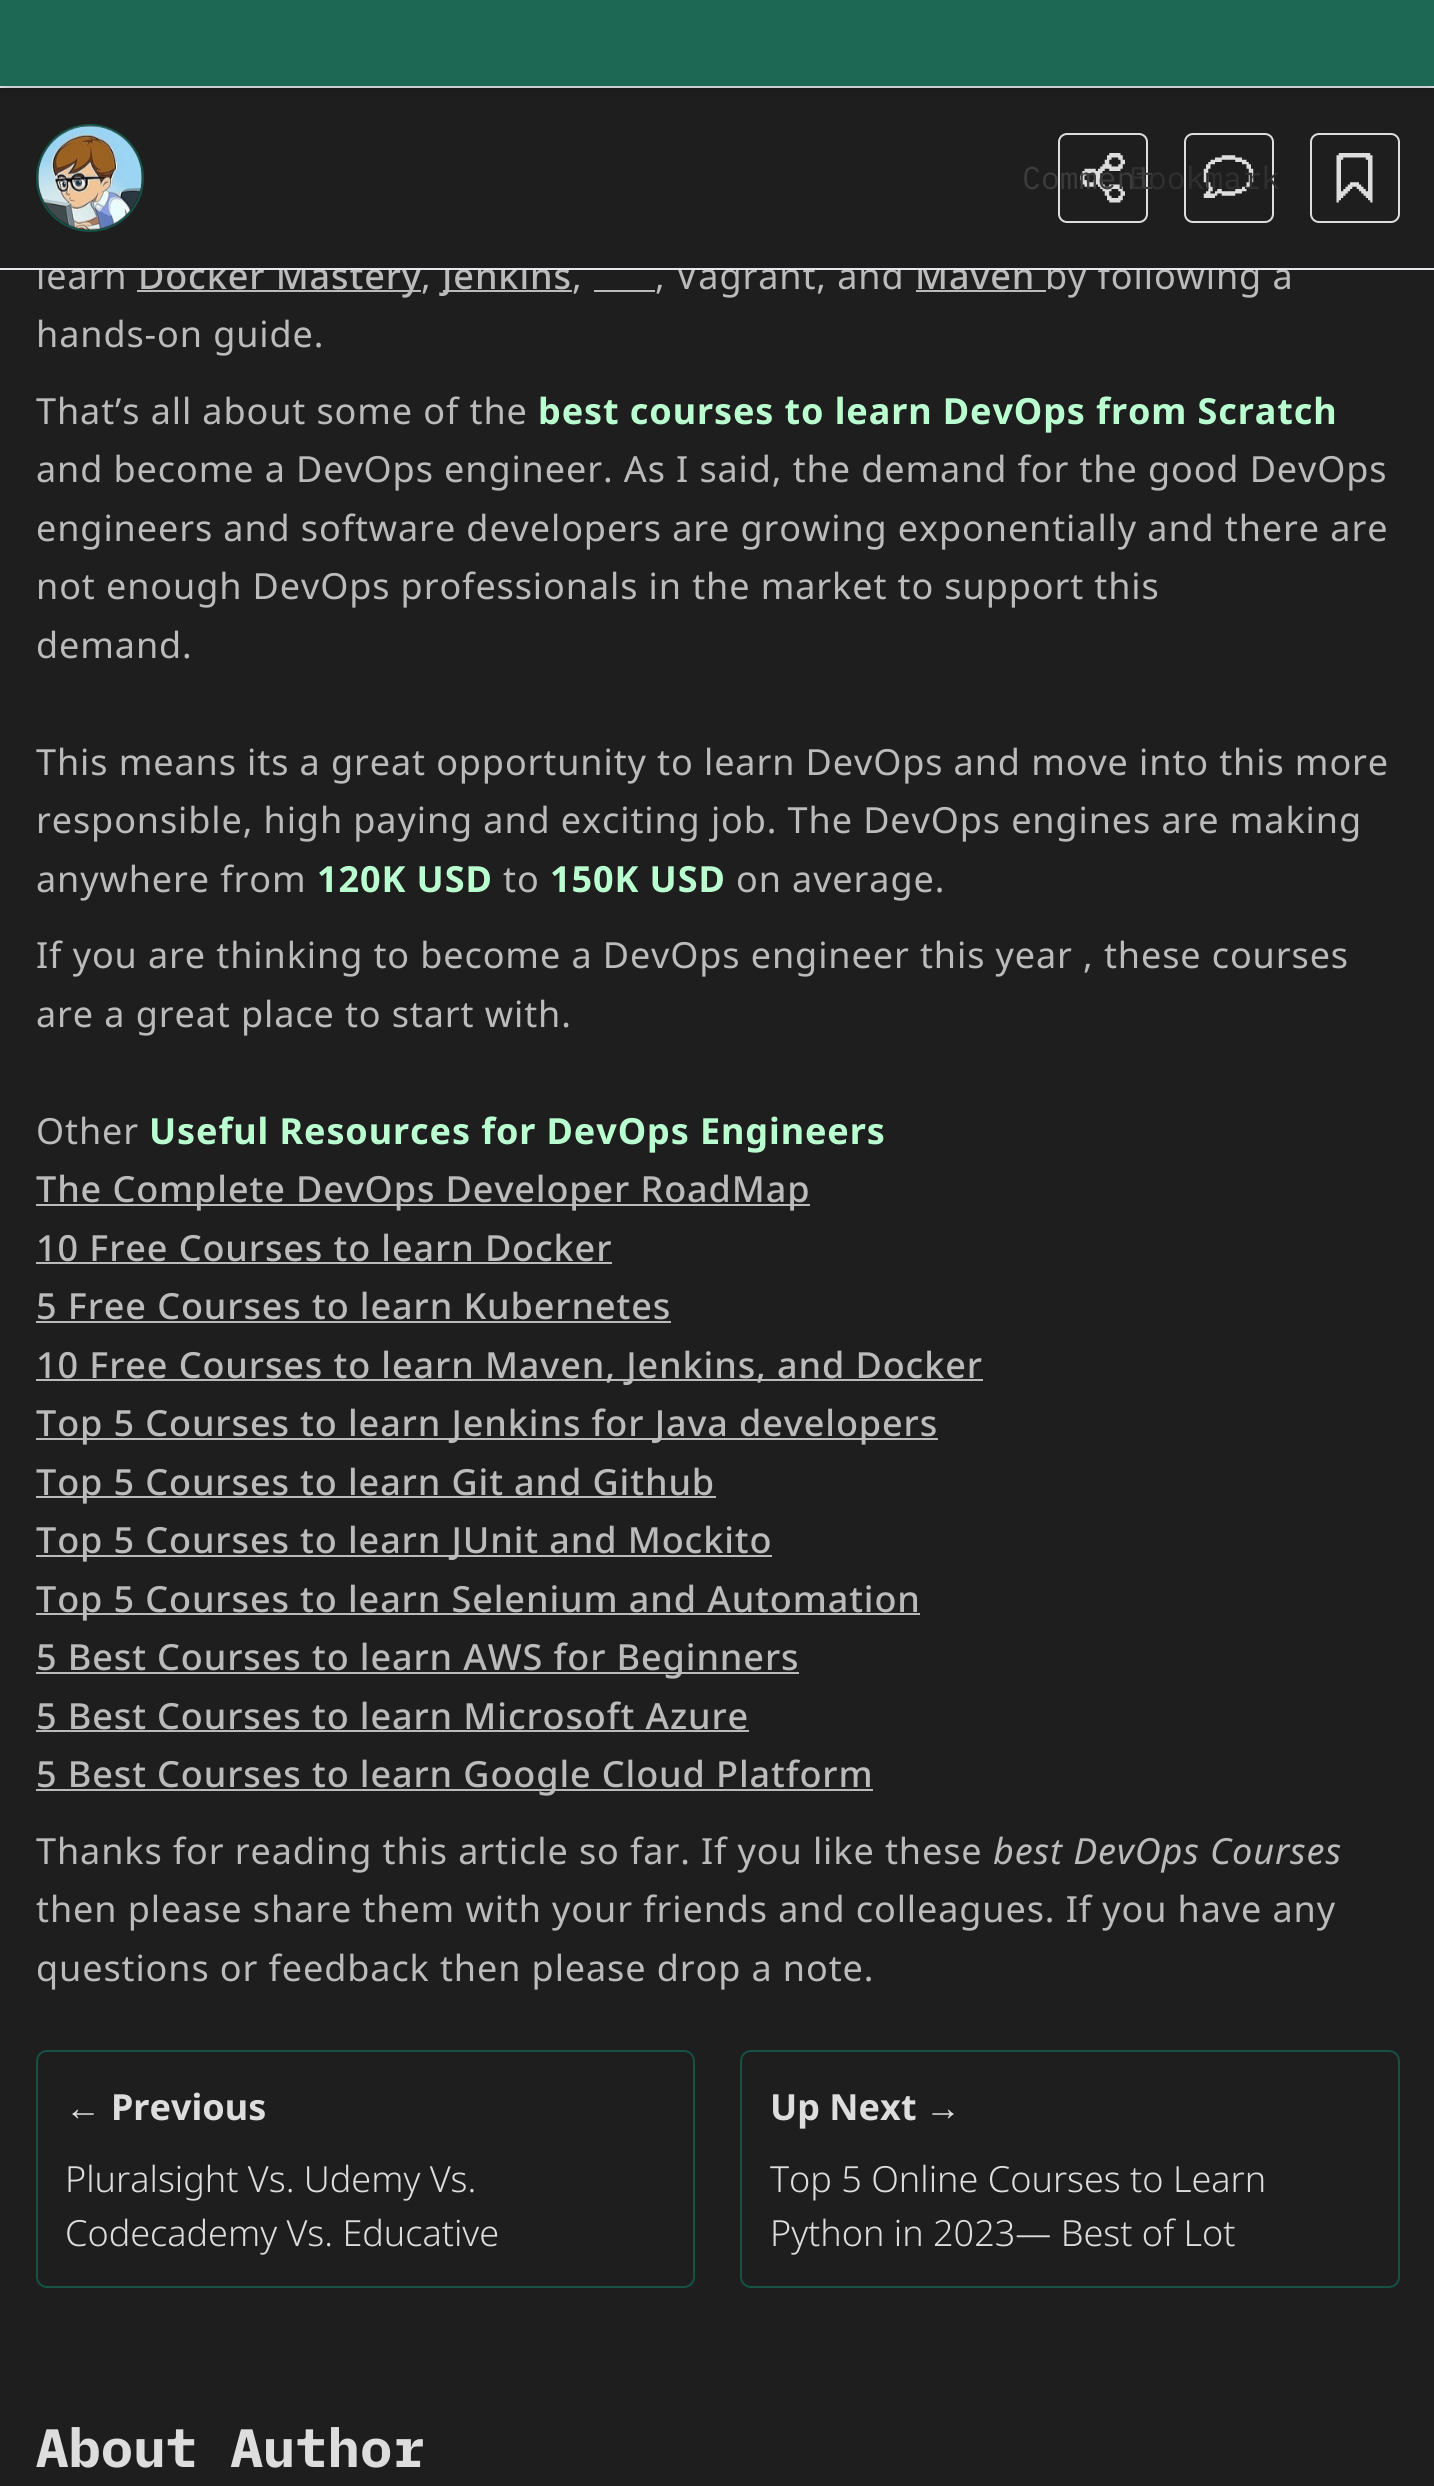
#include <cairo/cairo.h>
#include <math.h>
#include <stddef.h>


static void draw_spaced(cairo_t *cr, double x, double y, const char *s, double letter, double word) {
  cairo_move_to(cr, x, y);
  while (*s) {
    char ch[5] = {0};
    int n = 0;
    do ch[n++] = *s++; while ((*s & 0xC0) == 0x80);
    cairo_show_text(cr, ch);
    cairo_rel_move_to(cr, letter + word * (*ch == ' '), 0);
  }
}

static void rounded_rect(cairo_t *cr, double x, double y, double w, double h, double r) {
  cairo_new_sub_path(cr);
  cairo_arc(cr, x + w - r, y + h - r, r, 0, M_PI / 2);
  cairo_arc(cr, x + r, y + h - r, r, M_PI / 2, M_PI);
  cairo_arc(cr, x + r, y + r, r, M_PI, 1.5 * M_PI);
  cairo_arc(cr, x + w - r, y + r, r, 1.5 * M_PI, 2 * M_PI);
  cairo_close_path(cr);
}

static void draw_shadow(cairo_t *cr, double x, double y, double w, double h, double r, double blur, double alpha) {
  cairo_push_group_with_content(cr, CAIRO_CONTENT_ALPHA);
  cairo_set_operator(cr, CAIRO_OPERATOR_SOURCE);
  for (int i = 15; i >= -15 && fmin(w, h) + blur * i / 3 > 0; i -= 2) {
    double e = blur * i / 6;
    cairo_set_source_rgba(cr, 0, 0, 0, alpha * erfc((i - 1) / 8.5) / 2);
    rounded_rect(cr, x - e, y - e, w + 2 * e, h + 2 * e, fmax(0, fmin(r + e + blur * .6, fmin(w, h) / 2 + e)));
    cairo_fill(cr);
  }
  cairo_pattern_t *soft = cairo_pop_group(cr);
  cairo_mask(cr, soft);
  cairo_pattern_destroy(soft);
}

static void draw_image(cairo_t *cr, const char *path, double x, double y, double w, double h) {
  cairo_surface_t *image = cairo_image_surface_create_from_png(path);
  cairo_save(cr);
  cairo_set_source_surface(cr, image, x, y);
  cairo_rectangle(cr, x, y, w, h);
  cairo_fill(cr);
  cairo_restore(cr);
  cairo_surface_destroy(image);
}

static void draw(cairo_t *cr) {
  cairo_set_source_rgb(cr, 30 / 255.0, 30 / 255.0, 30 / 255.0);
  cairo_paint(cr);
  cairo_set_source_rgb(cr, 229 / 255.0, 231 / 255.0, 235 / 255.0);
  cairo_rectangle(cr, 0, 86, 1434, 2);
  cairo_fill(cr);
  cairo_set_source_rgb(cr, 0, 0, 0);
  draw_shadow(cr, 5, 9, 1426, 77, 0, 4.5, 0.1);
  draw_shadow(cr, 2, 11, 1431, 81, 0, 7, 0.1);
  cairo_set_source_rgb(cr, 29 / 255.0, 104 / 255.0, 84 / 255.0);
  cairo_rectangle(cr, 0, 0, 1434, 86);
  cairo_fill(cr);
  cairo_arc(cr, 90, 178, 53, 0, 2 * M_PI);
  cairo_set_source_rgb(cr, 21 / 255.0, 81 / 255.0, 68 / 255.0);
  cairo_stroke(cr);
  draw_image(cr, "images/1.png", 38, 125, 104, 105);
  rounded_rect(cr, 1059, 134, 88, 88, 8);
  cairo_set_source_rgb(cr, 221 / 255.0, 221 / 255.0, 221 / 255.0);
  cairo_stroke(cr);
  draw_image(cr, "images/2.png", 1080, 153, 45, 50);
  rounded_rect(cr, 1311, 134, 88, 88, 8);
  cairo_stroke(cr);
  draw_image(cr, "images/3.png", 1336, 153, 37, 50);
  rounded_rect(cr, 1185, 134, 88, 88, 8);
  cairo_stroke(cr);
  draw_image(cr, "images/4.png", 1203, 155, 51, 43);
  cairo_set_source_rgb(cr, 187 / 255.0, 187 / 255.0, 187 / 255.0);
  cairo_rectangle(cr, 137, 290, 284, 2);
  cairo_fill(cr);
  cairo_rectangle(cr, 443, 290, 129, 2);
  cairo_fill(cr);
  cairo_rectangle(cr, 594, 290, 61, 2);
  cairo_fill(cr);
  cairo_rectangle(cr, 916, 290, 130, 2);
  cairo_fill(cr);
  cairo_rectangle(cr, 36, 1204, 774, 2);
  cairo_fill(cr);
  cairo_rectangle(cr, 36, 1262, 576, 2);
  cairo_fill(cr);
  cairo_rectangle(cr, 36, 1321, 635, 2);
  cairo_fill(cr);
  cairo_rectangle(cr, 36, 1379, 947, 2);
  cairo_fill(cr);
  cairo_rectangle(cr, 36, 1438, 902, 2);
  cairo_fill(cr);
  cairo_rectangle(cr, 36, 1496, 680, 2);
  cairo_fill(cr);
  cairo_rectangle(cr, 36, 1555, 736, 2);
  cairo_fill(cr);
  cairo_rectangle(cr, 36, 1613, 884, 2);
  cairo_fill(cr);
  cairo_rectangle(cr, 36, 1672, 763, 2);
  cairo_fill(cr);
  cairo_rectangle(cr, 36, 1730, 713, 2);
  cairo_fill(cr);
  cairo_rectangle(cr, 36, 1789, 837, 2);
  cairo_fill(cr);
  rounded_rect(cr, 37, 2051, 657, 236, 10);
  cairo_set_source_rgb(cr, 21 / 255.0, 81 / 255.0, 68 / 255.0);
  cairo_stroke(cr);
  rounded_rect(cr, 741, 2051, 658, 236, 10);
  cairo_stroke(cr);
  cairo_select_font_face(cr, "IBM Plex Mono", CAIRO_FONT_SLANT_NORMAL, CAIRO_FONT_WEIGHT_NORMAL);
  cairo_set_font_size(cr, 31.5);
  cairo_set_source_rgb(cr, 48 / 255.0, 48 / 255.0, 48 / 255.0);
  cairo_move_to(cr, 1129, 189);
  cairo_show_text(cr, "Bookmark");
  cairo_set_source_rgb(cr, 60 / 255.0, 60 / 255.0, 60 / 255.0);
  cairo_move_to(cr, 1022, 189);
  cairo_show_text(cr, "Comment");
  cairo_select_font_face(cr, "Noto Sans", CAIRO_FONT_SLANT_NORMAL, CAIRO_FONT_WEIGHT_NORMAL);
  cairo_set_font_size(cr, 36);
  cairo_set_source_rgb(cr, 187 / 255.0, 187 / 255.0, 187 / 255.0);
  draw_spaced(cr, 36, 289, "learn", 0.9, 0);
  cairo_select_font_face(cr, "Noto Sans Medium", CAIRO_FONT_SLANT_NORMAL, CAIRO_FONT_WEIGHT_NORMAL);
  draw_spaced(cr, 138, 289, "Docker Mastery", 0.9, 0);
  cairo_select_font_face(cr, "Noto Sans", CAIRO_FONT_SLANT_NORMAL, CAIRO_FONT_WEIGHT_NORMAL);
  draw_spaced(cr, 421, 289, ",", 0.9, 0);
  cairo_select_font_face(cr, "Noto Sans Medium", CAIRO_FONT_SLANT_NORMAL, CAIRO_FONT_WEIGHT_NORMAL);
  draw_spaced(cr, 442, 289, "Jenkins", 0.9, 0);
  cairo_select_font_face(cr, "Noto Sans", CAIRO_FONT_SLANT_NORMAL, CAIRO_FONT_WEIGHT_NORMAL);
  draw_spaced(cr, 572, 289, ",", 0.9, 0);
  draw_spaced(cr, 655, 289, ", Vagrant, and", 0.9, 0);
  cairo_select_font_face(cr, "Noto Sans Medium", CAIRO_FONT_SLANT_NORMAL, CAIRO_FONT_WEIGHT_NORMAL);
  draw_spaced(cr, 915, 289, "Maven", 0.9, 0);
  cairo_select_font_face(cr, "Noto Sans", CAIRO_FONT_SLANT_NORMAL, CAIRO_FONT_WEIGHT_NORMAL);
  draw_spaced(cr, 1045, 289, "by following a", 0.9, 0);
  cairo_set_source_rgb(cr, 229 / 255.0, 231 / 255.0, 235 / 255.0);
  cairo_rectangle(cr, 0, 268, 1434, 2);
  cairo_fill(cr);
  cairo_set_source_rgb(cr, 30 / 255.0, 30 / 255.0, 30 / 255.0);
  cairo_rectangle(cr, 39, 261, 1174, 7);
  cairo_fill(cr);
  cairo_set_source_rgb(cr, 187 / 255.0, 187 / 255.0, 187 / 255.0);
  draw_spaced(cr, 36, 347, "hands-on guide.", 0.9, 0);
  draw_spaced(cr, 36, 424, "That’s all about some of the", 0.9, 0);
  cairo_select_font_face(cr, "Noto Sans", CAIRO_FONT_SLANT_NORMAL, CAIRO_FONT_WEIGHT_BOLD);
  cairo_set_source_rgb(cr, 185 / 255.0, 1, 208 / 255.0);
  draw_spaced(cr, 538, 424, "best courses to learn DevOps from Scratch", 0.9, 0);
  cairo_select_font_face(cr, "Noto Sans", CAIRO_FONT_SLANT_NORMAL, CAIRO_FONT_WEIGHT_NORMAL);
  cairo_set_source_rgb(cr, 187 / 255.0, 187 / 255.0, 187 / 255.0);
  draw_spaced(cr, 36, 482, "and become a DevOps engineer. As I said, the demand for the good DevOps", 0.9, 0);
  draw_spaced(cr, 36, 541, "engineers and software developers are growing exponentially and there are", 0.9, 0);
  draw_spaced(cr, 36, 599, "not enough DevOps professionals in the market to support this", 0.9, 0);
  draw_spaced(cr, 36, 658, "demand.", 0.9, 0);
  draw_spaced(cr, 36, 775, "This means its a great opportunity to learn DevOps and move into this more", 0.9, 0);
  draw_spaced(cr, 36, 833, "responsible, high paying and exciting job. The DevOps engines are making", 0.9, 0);
  draw_spaced(cr, 36, 892, "anywhere from", 0.9, 0);
  cairo_select_font_face(cr, "Noto Sans", CAIRO_FONT_SLANT_NORMAL, CAIRO_FONT_WEIGHT_BOLD);
  cairo_set_source_rgb(cr, 185 / 255.0, 1, 208 / 255.0);
  draw_spaced(cr, 317, 892, "120K USD", 0.9, 0);
  cairo_select_font_face(cr, "Noto Sans", CAIRO_FONT_SLANT_NORMAL, CAIRO_FONT_WEIGHT_NORMAL);
  cairo_set_source_rgb(cr, 187 / 255.0, 187 / 255.0, 187 / 255.0);
  draw_spaced(cr, 503, 892, "to", 0.9, 0);
  cairo_select_font_face(cr, "Noto Sans", CAIRO_FONT_SLANT_NORMAL, CAIRO_FONT_WEIGHT_BOLD);
  cairo_set_source_rgb(cr, 185 / 255.0, 1, 208 / 255.0);
  draw_spaced(cr, 550, 892, "150K USD", 0.9, 0);
  cairo_select_font_face(cr, "Noto Sans", CAIRO_FONT_SLANT_NORMAL, CAIRO_FONT_WEIGHT_NORMAL);
  cairo_set_source_rgb(cr, 187 / 255.0, 187 / 255.0, 187 / 255.0);
  draw_spaced(cr, 736, 892, "on average.", 0.9, 0);
  draw_spaced(cr, 36, 968, "If you are thinking to become a DevOps engineer this year , these courses", 0.9, 0);
  draw_spaced(cr, 36, 1027, "are a great place to start with.", 0.9, 0);
  draw_spaced(cr, 36, 1144, "Other", 0.9, 0);
  cairo_select_font_face(cr, "Noto Sans", CAIRO_FONT_SLANT_NORMAL, CAIRO_FONT_WEIGHT_BOLD);
  cairo_set_source_rgb(cr, 185 / 255.0, 1, 208 / 255.0);
  draw_spaced(cr, 149, 1144, "Useful Resources for DevOps Engineers", 0.9, 0);
  cairo_select_font_face(cr, "Noto Sans Medium", CAIRO_FONT_SLANT_NORMAL, CAIRO_FONT_WEIGHT_NORMAL);
  cairo_set_source_rgb(cr, 187 / 255.0, 187 / 255.0, 187 / 255.0);
  draw_spaced(cr, 36, 1202, "The Complete DevOps Developer RoadMap", 0.9, 0);
  draw_spaced(cr, 36, 1261, "10 Free Courses to learn Docker", 0.9, 0);
  draw_spaced(cr, 36, 1319, "5 Free Courses to learn Kubernetes", 0.9, 0);
  draw_spaced(cr, 36, 1378, "10 Free Courses to learn Maven, Jenkins, and Docker", 0.9, 0);
  draw_spaced(cr, 36, 1436, "Top 5 Courses to learn Jenkins for Java developers", 0.9, 0);
  draw_spaced(cr, 36, 1495, "Top 5 Courses to learn Git and Github", 0.9, 0);
  draw_spaced(cr, 36, 1553, "Top 5 Courses to learn JUnit and Mockito", 0.9, 0);
  draw_spaced(cr, 36, 1612, "Top 5 Courses to learn Selenium and Automation", 0.9, 0);
  draw_spaced(cr, 36, 1670, "5 Best Courses to learn AWS for Beginners", 0.9, 0);
  draw_spaced(cr, 36, 1729, "5 Best Courses to learn Microsoft Azure", 0.9, 0);
  draw_spaced(cr, 36, 1787, "5 Best Courses to learn Google Cloud Platform", 0.9, 0);
  cairo_select_font_face(cr, "Noto Sans", CAIRO_FONT_SLANT_NORMAL, CAIRO_FONT_WEIGHT_NORMAL);
  draw_spaced(cr, 36, 1864, "Thanks for reading this article so far. If you like these", 0.9, 0);
  cairo_select_font_face(cr, "Noto Sans", CAIRO_FONT_SLANT_ITALIC, CAIRO_FONT_WEIGHT_NORMAL);
  draw_spaced(cr, 993, 1864, "best DevOps Courses", 0.9, 0);
  cairo_select_font_face(cr, "Noto Sans", CAIRO_FONT_SLANT_NORMAL, CAIRO_FONT_WEIGHT_NORMAL);
  draw_spaced(cr, 36, 1922, "then please share them with your friends and colleagues. If you have any", 0.9, 0);
  draw_spaced(cr, 36, 1981, "questions or feedback then please drop a note.", 0.9, 0);
  cairo_select_font_face(cr, "Liberation Sans", CAIRO_FONT_SLANT_NORMAL, CAIRO_FONT_WEIGHT_BOLD);
  cairo_set_source_rgb(cr, 221 / 255.0, 221 / 255.0, 221 / 255.0);
  cairo_move_to(cr, 65, 2120);
  cairo_show_text(cr, "←");
  cairo_select_font_face(cr, "Noto Sans", CAIRO_FONT_SLANT_NORMAL, CAIRO_FONT_WEIGHT_BOLD);
  cairo_move_to(cr, 111, 2120);
  cairo_show_text(cr, "Previous");
  cairo_select_font_face(cr, "Noto Sans Light", CAIRO_FONT_SLANT_NORMAL, CAIRO_FONT_WEIGHT_NORMAL);
  cairo_move_to(cr, 65, 2192);
  cairo_show_text(cr, "Pluralsight Vs. Udemy Vs.");
  cairo_move_to(cr, 65, 2246);
  cairo_show_text(cr, "Codecademy Vs. Educative");
  cairo_select_font_face(cr, "Noto Sans", CAIRO_FONT_SLANT_NORMAL, CAIRO_FONT_WEIGHT_BOLD);
  cairo_move_to(cr, 770, 2120);
  cairo_show_text(cr, "Up Next");
  cairo_select_font_face(cr, "Liberation Sans", CAIRO_FONT_SLANT_NORMAL, CAIRO_FONT_WEIGHT_BOLD);
  cairo_move_to(cr, 925, 2120);
  cairo_show_text(cr, "→");
  cairo_select_font_face(cr, "Noto Sans Light", CAIRO_FONT_SLANT_NORMAL, CAIRO_FONT_WEIGHT_NORMAL);
  cairo_move_to(cr, 770, 2192);
  cairo_show_text(cr, "Top 5 Online Courses to Learn");
  cairo_move_to(cr, 770, 2246);
  cairo_show_text(cr, "Python in 2023— Best of Lot");
  cairo_select_font_face(cr, "IBM Plex Mono", CAIRO_FONT_SLANT_NORMAL, CAIRO_FONT_WEIGHT_BOLD);
  cairo_set_font_size(cr, 54);
  cairo_move_to(cr, 36, 2467);
  cairo_show_text(cr, "About Author");
}

int main(void) {
  cairo_surface_t *surface = cairo_image_surface_create(CAIRO_FORMAT_RGB24, 1434, 2486);
  cairo_t *cr = cairo_create(surface);
  cairo_font_options_t *options = cairo_font_options_create();
  cairo_font_options_set_hint_metrics(options, CAIRO_HINT_METRICS_OFF);
  cairo_font_options_set_hint_style(options, CAIRO_HINT_STYLE_NONE);
  cairo_set_font_options(cr, options);
  cairo_set_miter_limit(cr, 4);
  draw(cr);
  cairo_surface_write_to_png(surface, "out.png");
  cairo_font_options_destroy(options);
  cairo_destroy(cr);
  cairo_surface_destroy(surface);
  return 0;
}
